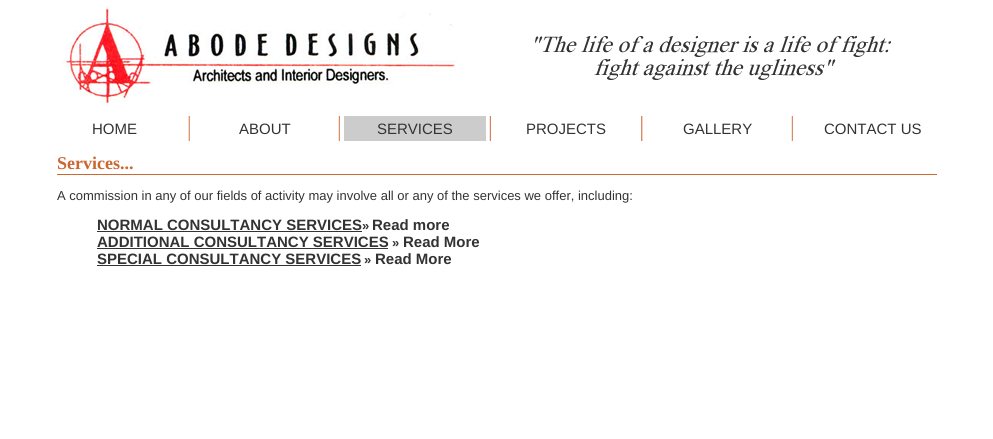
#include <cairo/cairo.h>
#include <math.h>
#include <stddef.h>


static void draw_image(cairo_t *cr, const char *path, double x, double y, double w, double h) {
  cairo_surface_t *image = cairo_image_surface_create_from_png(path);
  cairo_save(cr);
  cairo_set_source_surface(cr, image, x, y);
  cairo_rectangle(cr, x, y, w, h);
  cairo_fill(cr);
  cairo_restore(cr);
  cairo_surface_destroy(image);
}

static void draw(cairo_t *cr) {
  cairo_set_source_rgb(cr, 1, 1, 1);
  cairo_paint(cr);
  draw_image(cr, "images/1.png", 62, 6, 396, 100);
  draw_image(cr, "images/2.png", 535, 36, 356, 44);
  draw_image(cr, "images/3.png", 188, 116, 2, 25);
  draw_image(cr, "images/4.png", 338, 116, 2, 25);
  cairo_set_source_rgb(cr, 204 / 255.0, 204 / 255.0, 204 / 255.0);
  cairo_rectangle(cr, 344, 116, 142, 25);
  cairo_fill(cr);
  draw_image(cr, "images/5.png", 489, 116, 2, 25);
  draw_image(cr, "images/6.png", 641, 116, 2, 25);
  draw_image(cr, "images/4.png", 791, 116, 2, 25);
  cairo_set_source_rgb(cr, 204 / 255.0, 102 / 255.0, 51 / 255.0);
  cairo_rectangle(cr, 57, 174, 880, 1);
  cairo_fill(cr);
  cairo_set_source_rgb(cr, 51 / 255.0, 51 / 255.0, 51 / 255.0);
  cairo_rectangle(cr, 97, 231, 265, 1);
  cairo_fill(cr);
  cairo_rectangle(cr, 97, 248, 291, 1);
  cairo_fill(cr);
  cairo_rectangle(cr, 97, 265, 264, 1);
  cairo_fill(cr);
  cairo_select_font_face(cr, "Liberation Sans", CAIRO_FONT_SLANT_NORMAL, CAIRO_FONT_WEIGHT_NORMAL);
  cairo_set_font_size(cr, 15);
  cairo_move_to(cr, 92, 134);
  cairo_show_text(cr, "HOME");
  cairo_move_to(cr, 239, 134);
  cairo_show_text(cr, "ABOUT");
  cairo_move_to(cr, 377, 134);
  cairo_show_text(cr, "SERVICES");
  cairo_move_to(cr, 526, 134);
  cairo_show_text(cr, "PROJECTS");
  cairo_move_to(cr, 683, 134);
  cairo_show_text(cr, "GALLERY");
  cairo_move_to(cr, 824, 134);
  cairo_show_text(cr, "CONTACT US");
  cairo_select_font_face(cr, "Liberation Serif", CAIRO_FONT_SLANT_NORMAL, CAIRO_FONT_WEIGHT_BOLD);
  cairo_set_font_size(cr, 18);
  cairo_set_source_rgb(cr, 204 / 255.0, 102 / 255.0, 51 / 255.0);
  cairo_move_to(cr, 57, 169);
  cairo_show_text(cr, "Services...");
  cairo_select_font_face(cr, "Liberation Sans", CAIRO_FONT_SLANT_NORMAL, CAIRO_FONT_WEIGHT_NORMAL);
  cairo_set_font_size(cr, 13);
  cairo_set_source_rgb(cr, 51 / 255.0, 51 / 255.0, 51 / 255.0);
  cairo_move_to(cr, 57, 200);
  cairo_show_text(cr, "A commission in any of our fields of activity may involve all or any of the services we offer, including:");
  cairo_select_font_face(cr, "Liberation Sans", CAIRO_FONT_SLANT_NORMAL, CAIRO_FONT_WEIGHT_BOLD);
  cairo_set_font_size(cr, 15);
  cairo_move_to(cr, 97, 230);
  cairo_show_text(cr, "NORMAL CONSULTANCY SERVICES");
  cairo_set_font_size(cr, 13);
  cairo_move_to(cr, 362, 230);
  cairo_show_text(cr, "»");
  cairo_set_font_size(cr, 15);
  cairo_move_to(cr, 372, 230);
  cairo_show_text(cr, "Read more");
  cairo_move_to(cr, 97, 247);
  cairo_show_text(cr, "ADDITIONAL CONSULTANCY SERVICES");
  cairo_set_font_size(cr, 13);
  cairo_move_to(cr, 392, 247);
  cairo_show_text(cr, "»");
  cairo_set_font_size(cr, 15);
  cairo_move_to(cr, 403, 247);
  cairo_show_text(cr, "Read More");
  cairo_move_to(cr, 97, 264);
  cairo_show_text(cr, "SPECIAL CONSULTANCY SERVICES");
  cairo_set_font_size(cr, 13);
  cairo_move_to(cr, 364, 264);
  cairo_show_text(cr, "»");
  cairo_set_font_size(cr, 15);
  cairo_move_to(cr, 375, 264);
  cairo_show_text(cr, "Read More");
}

int main(void) {
  cairo_surface_t *surface = cairo_image_surface_create(CAIRO_FORMAT_RGB24, 993, 439);
  cairo_t *cr = cairo_create(surface);
  cairo_font_options_t *options = cairo_font_options_create();
  cairo_font_options_set_hint_metrics(options, CAIRO_HINT_METRICS_OFF);
  cairo_font_options_set_hint_style(options, CAIRO_HINT_STYLE_NONE);
  cairo_set_font_options(cr, options);
  cairo_set_miter_limit(cr, 4);
  draw(cr);
  cairo_surface_write_to_png(surface, "out.png");
  cairo_font_options_destroy(options);
  cairo_destroy(cr);
  cairo_surface_destroy(surface);
  return 0;
}
